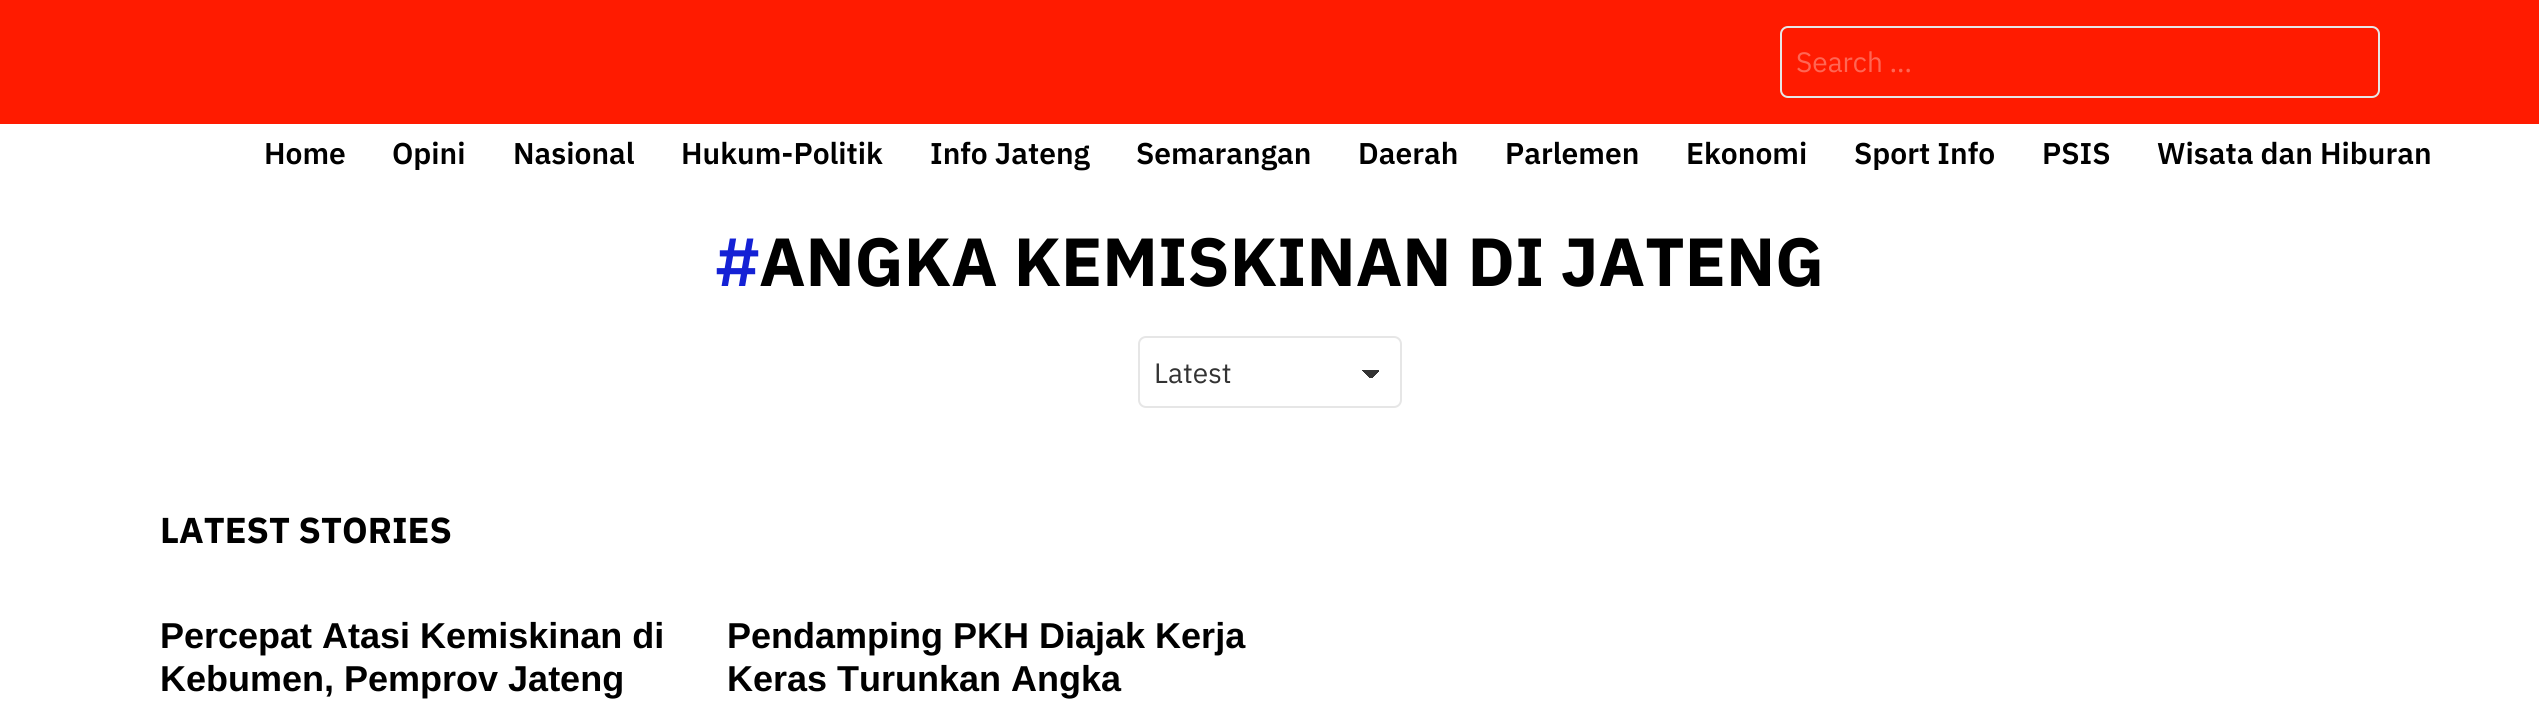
#include <cairo/cairo.h>
#include <math.h>
#include <stddef.h>


static void rounded_rect(cairo_t *cr, double x, double y, double w, double h, double r) {
  cairo_new_sub_path(cr);
  cairo_arc(cr, x + w - r, y + h - r, r, 0, M_PI / 2);
  cairo_arc(cr, x + r, y + h - r, r, M_PI / 2, M_PI);
  cairo_arc(cr, x + r, y + r, r, M_PI, 1.5 * M_PI);
  cairo_arc(cr, x + w - r, y + r, r, 1.5 * M_PI, 2 * M_PI);
  cairo_close_path(cr);
}

static void draw(cairo_t *cr) {
  cairo_pattern_t *gradient;
  cairo_set_source_rgb(cr, 1, 1, 1);
  cairo_paint(cr);
  cairo_set_source_rgb(cr, 1, 27 / 255.0, 0);
  cairo_rectangle(cr, 0, 0, 2539, 124);
  cairo_fill(cr);
  rounded_rect(cr, 1781, 27, 598, 70, 7);
  cairo_set_source_rgb(cr, 230 / 255.0, 230 / 255.0, 230 / 255.0);
  cairo_stroke(cr);
  gradient = cairo_pattern_create_linear(1371, 370, 1380, 379);
  cairo_pattern_add_color_stop_rgba(gradient, 0.5, 51 / 255.0, 51 / 255.0, 51 / 255.0, 1);
  cairo_pattern_add_color_stop_rgba(gradient, 0.5, 1, 1, 1, 1);
  cairo_set_source(cr, gradient);
  cairo_pattern_destroy(gradient);
  cairo_rectangle(cr, 1370, 370, 10, 8);
  cairo_fill(cr);
  gradient = cairo_pattern_create_linear(1361, 379, 1370, 370);
  cairo_pattern_add_color_stop_rgba(gradient, 0.5, 1, 1, 1, 1);
  cairo_pattern_add_color_stop_rgba(gradient, 0.5, 51 / 255.0, 51 / 255.0, 51 / 255.0, 1);
  cairo_set_source(cr, gradient);
  cairo_pattern_destroy(gradient);
  cairo_rectangle(cr, 1360, 370, 10, 8);
  cairo_fill(cr);
  rounded_rect(cr, 1139, 337, 262, 70, 7);
  cairo_set_source_rgb(cr, 230 / 255.0, 230 / 255.0, 230 / 255.0);
  cairo_stroke(cr);
  cairo_select_font_face(cr, "IBM Plex Sans", CAIRO_FONT_SLANT_NORMAL, CAIRO_FONT_WEIGHT_NORMAL);
  cairo_set_font_size(cr, 28);
  cairo_set_source_rgb(cr, 1, 102 / 255.0, 84 / 255.0);
  cairo_move_to(cr, 1796, 72);
  cairo_show_text(cr, "Search …");
  cairo_select_font_face(cr, "IBM Plex Sans SemiBold", CAIRO_FONT_SLANT_NORMAL, CAIRO_FONT_WEIGHT_NORMAL);
  cairo_set_font_size(cr, 30);
  cairo_set_source_rgb(cr, 0, 0, 0);
  cairo_move_to(cr, 264, 164);
  cairo_show_text(cr, "Home");
  cairo_move_to(cr, 392, 164);
  cairo_show_text(cr, "Opini");
  cairo_move_to(cr, 513, 164);
  cairo_show_text(cr, "Nasional");
  cairo_move_to(cr, 681, 164);
  cairo_show_text(cr, "Hukum-Politik");
  cairo_move_to(cr, 930, 164);
  cairo_show_text(cr, "Info Jateng");
  cairo_move_to(cr, 1136, 164);
  cairo_show_text(cr, "Semarangan");
  cairo_move_to(cr, 1358, 164);
  cairo_show_text(cr, "Daerah");
  cairo_move_to(cr, 1505, 164);
  cairo_show_text(cr, "Parlemen");
  cairo_move_to(cr, 1686, 164);
  cairo_show_text(cr, "Ekonomi");
  cairo_move_to(cr, 1854, 164);
  cairo_show_text(cr, "Sport Info");
  cairo_move_to(cr, 2042, 164);
  cairo_show_text(cr, "PSIS");
  cairo_move_to(cr, 2157, 164);
  cairo_show_text(cr, "Wisata dan Hiburan");
  cairo_select_font_face(cr, "IBM Plex Sans", CAIRO_FONT_SLANT_NORMAL, CAIRO_FONT_WEIGHT_BOLD);
  cairo_set_font_size(cr, 68);
  cairo_set_source_rgb(cr, 20 / 255.0, 33 / 255.0, 213 / 255.0);
  cairo_move_to(cr, 716, 286);
  cairo_show_text(cr, "#");
  cairo_set_source_rgb(cr, 0, 0, 0);
  cairo_move_to(cr, 759, 286);
  cairo_show_text(cr, "ANGKA KEMISKINAN DI JATENG");
  cairo_select_font_face(cr, "IBM Plex Sans", CAIRO_FONT_SLANT_NORMAL, CAIRO_FONT_WEIGHT_NORMAL);
  cairo_set_font_size(cr, 28);
  cairo_set_source_rgb(cr, 51 / 255.0, 51 / 255.0, 51 / 255.0);
  cairo_move_to(cr, 1154, 383);
  cairo_show_text(cr, "Latest");
  cairo_select_font_face(cr, "IBM Plex Sans", CAIRO_FONT_SLANT_NORMAL, CAIRO_FONT_WEIGHT_BOLD);
  cairo_set_font_size(cr, 36);
  cairo_set_source_rgb(cr, 0, 0, 0);
  cairo_move_to(cr, 160, 543);
  cairo_show_text(cr, "LATEST STORIES");
  cairo_select_font_face(cr, "Liberation Sans", CAIRO_FONT_SLANT_NORMAL, CAIRO_FONT_WEIGHT_BOLD);
  cairo_move_to(cr, 160, 648);
  cairo_show_text(cr, "Percepat Atasi Kemiskinan di");
  cairo_move_to(cr, 160, 691);
  cairo_show_text(cr, "Kebumen, Pemprov Jateng");
  cairo_move_to(cr, 727, 648);
  cairo_show_text(cr, "Pendamping PKH Diajak Kerja");
  cairo_move_to(cr, 727, 691);
  cairo_show_text(cr, "Keras Turunkan Angka");
}

int main(void) {
  cairo_surface_t *surface = cairo_image_surface_create(CAIRO_FORMAT_RGB24, 2539, 723);
  cairo_t *cr = cairo_create(surface);
  cairo_font_options_t *options = cairo_font_options_create();
  cairo_font_options_set_hint_metrics(options, CAIRO_HINT_METRICS_OFF);
  cairo_font_options_set_hint_style(options, CAIRO_HINT_STYLE_NONE);
  cairo_set_font_options(cr, options);
  cairo_set_miter_limit(cr, 4);
  draw(cr);
  cairo_surface_write_to_png(surface, "out.png");
  cairo_font_options_destroy(options);
  cairo_destroy(cr);
  cairo_surface_destroy(surface);
  return 0;
}
